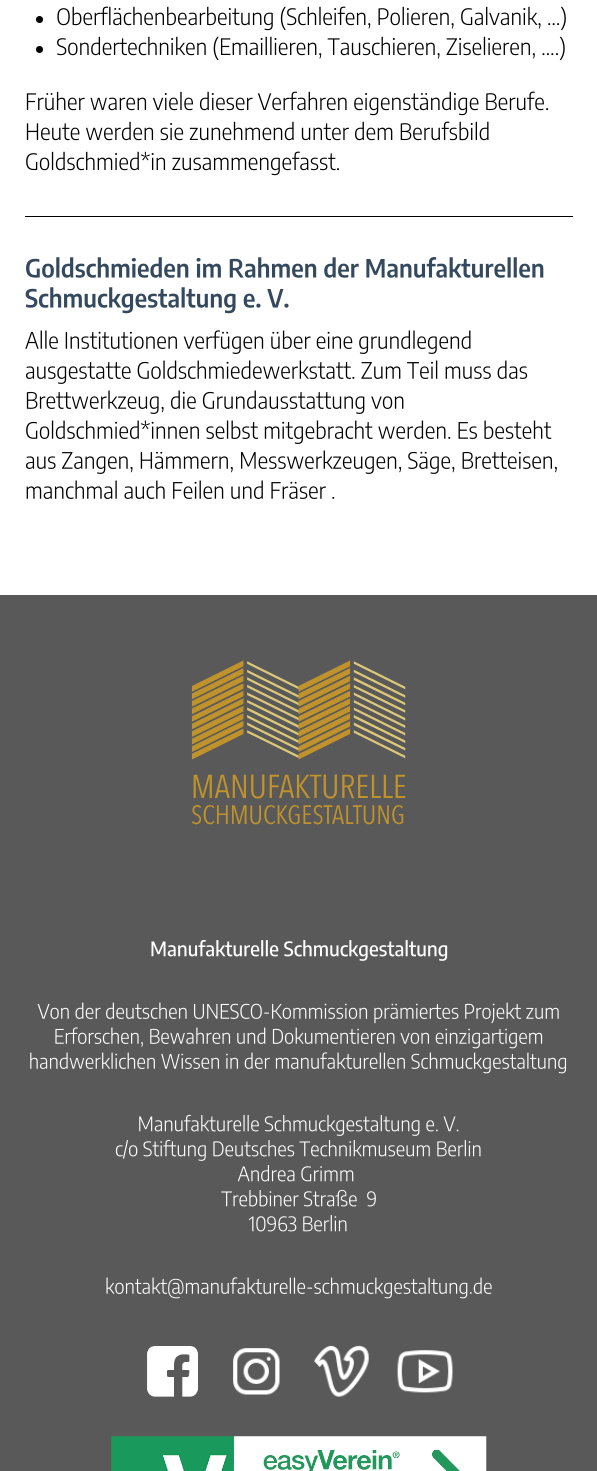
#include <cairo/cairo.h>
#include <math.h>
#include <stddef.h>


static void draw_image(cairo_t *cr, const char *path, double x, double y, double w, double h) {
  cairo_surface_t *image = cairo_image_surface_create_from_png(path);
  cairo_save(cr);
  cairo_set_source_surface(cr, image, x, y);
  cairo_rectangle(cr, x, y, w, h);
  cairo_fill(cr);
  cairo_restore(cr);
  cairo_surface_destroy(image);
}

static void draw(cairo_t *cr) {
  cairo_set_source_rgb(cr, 89 / 255.0, 89 / 255.0, 89 / 255.0);
  cairo_paint(cr);
  cairo_set_source_rgb(cr, 1, 1, 1);
  cairo_rectangle(cr, 0, 0, 597, 595);
  cairo_fill(cr);
  cairo_set_source_rgb(cr, 0, 0, 0);
  cairo_arc(cr, 39.5, 19.5, 3.5, 0, 2 * M_PI);
  cairo_fill(cr);
  draw_image(cr, "images/1.png", 57, 6, 509, 25);
  cairo_arc(cr, 39.5, 49.5, 3.5, 0, 2 * M_PI);
  cairo_fill(cr);
  draw_image(cr, "images/2.png", 57, 36, 508, 24);
  draw_image(cr, "images/3.png", 26, 91, 523, 25);
  draw_image(cr, "images/4.png", 26, 121, 463, 20);
  draw_image(cr, "images/5.png", 26, 151, 313, 25);
  cairo_rectangle(cr, 25, 216, 548, 1);
  cairo_fill(cr);
  draw_image(cr, "images/6.png", 26, 257, 518, 21);
  draw_image(cr, "images/7.png", 25, 287, 264, 27);
  draw_image(cr, "images/8.png", 25, 330, 446, 24);
  draw_image(cr, "images/9.png", 26, 360, 502, 24);
  draw_image(cr, "images/10.png", 26, 390, 378, 24);
  draw_image(cr, "images/11.png", 26, 420, 526, 24);
  draw_image(cr, "images/12.png", 26, 450, 531, 24);
  draw_image(cr, "images/13.png", 26, 480, 309, 19);
  draw_image(cr, "images/14.png", 191, 660, 215, 165);
  draw_image(cr, "images/15.png", 151, 939, 297, 22);
  draw_image(cr, "images/16.png", 37, 1002, 522, 22);
  draw_image(cr, "images/17.png", 55, 1027, 488, 22);
  draw_image(cr, "images/18.png", 30, 1052, 537, 22);
  draw_image(cr, "images/19.png", 139, 1114, 320, 22);
  draw_image(cr, "images/20.png", 115, 1139, 366, 22);
  draw_image(cr, "images/21.png", 237, 1165, 117, 17);
  draw_image(cr, "images/22.png", 221, 1189, 155, 18);
  draw_image(cr, "images/23.png", 249, 1215, 98, 17);
  draw_image(cr, "images/24.png", 106, 1277, 386, 22);
  draw_image(cr, "images/25.png", 147, 1346, 51, 51);
  draw_image(cr, "images/26.png", 233, 1348, 47, 47);
  draw_image(cr, "images/27.png", 313, 1345, 56, 52);
  draw_image(cr, "images/28.png", 397, 1350, 56, 43);
  draw_image(cr, "images/29.png", 111, 1436, 376, 35);
}

int main(void) {
  cairo_surface_t *surface = cairo_image_surface_create(CAIRO_FORMAT_RGB24, 597, 1471);
  cairo_t *cr = cairo_create(surface);
  cairo_font_options_t *options = cairo_font_options_create();
  cairo_font_options_set_hint_metrics(options, CAIRO_HINT_METRICS_OFF);
  cairo_font_options_set_hint_style(options, CAIRO_HINT_STYLE_NONE);
  cairo_set_font_options(cr, options);
  cairo_set_miter_limit(cr, 4);
  draw(cr);
  cairo_surface_write_to_png(surface, "out.png");
  cairo_font_options_destroy(options);
  cairo_destroy(cr);
  cairo_surface_destroy(surface);
  return 0;
}
